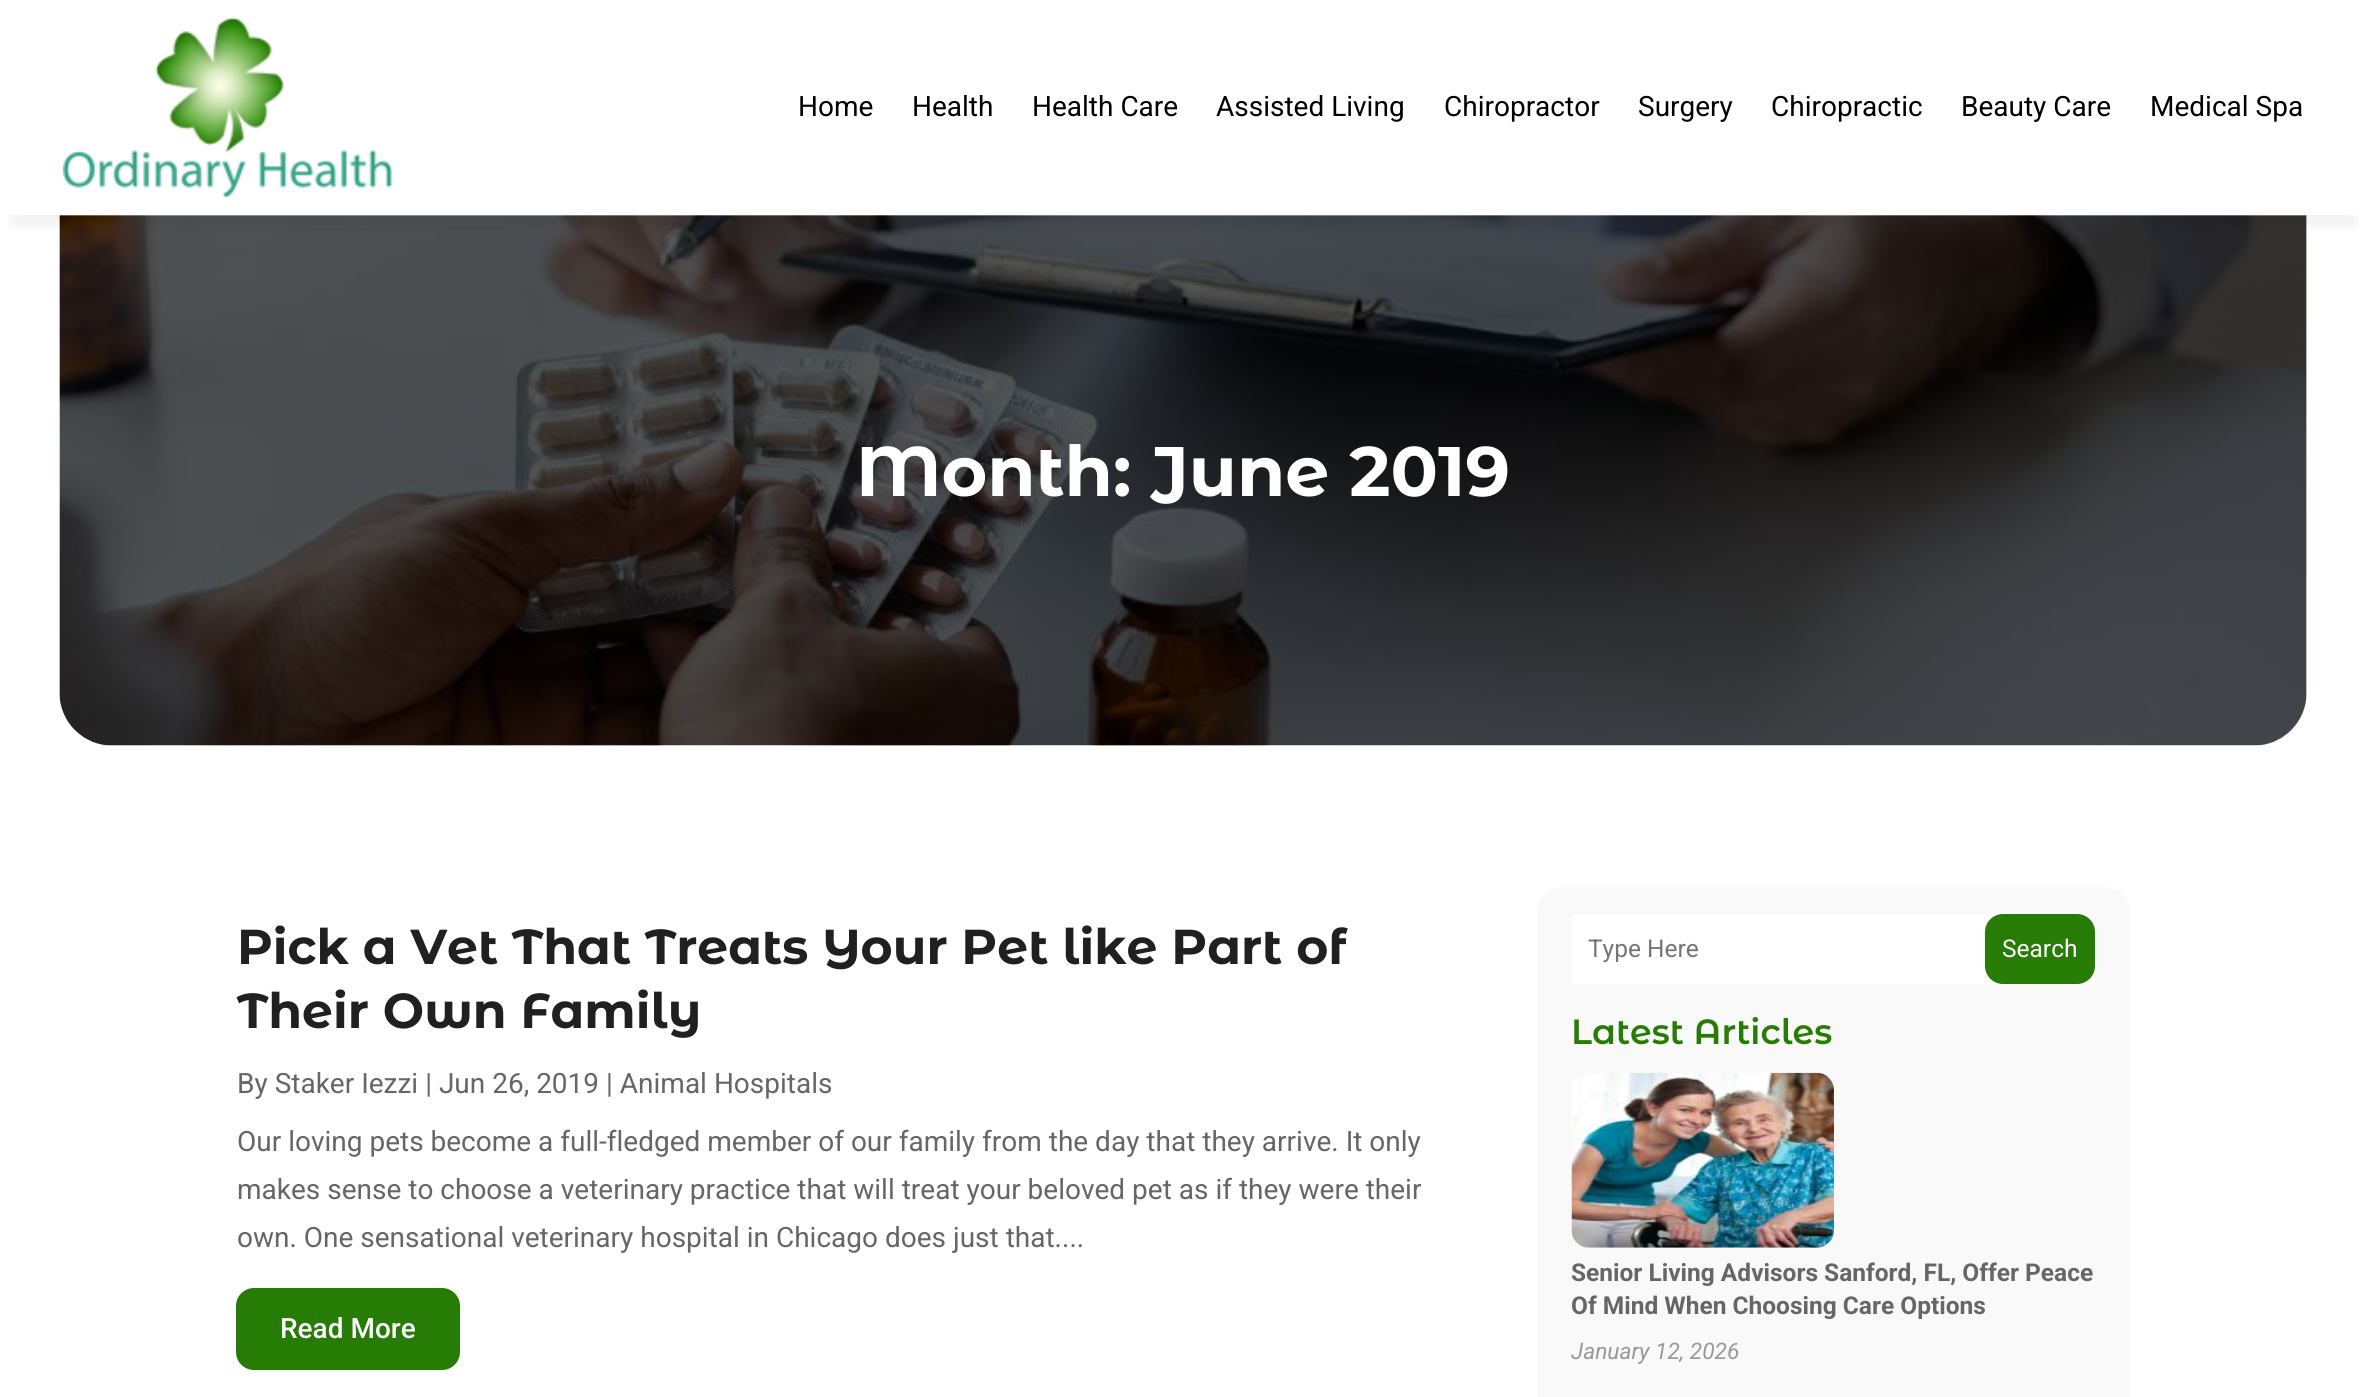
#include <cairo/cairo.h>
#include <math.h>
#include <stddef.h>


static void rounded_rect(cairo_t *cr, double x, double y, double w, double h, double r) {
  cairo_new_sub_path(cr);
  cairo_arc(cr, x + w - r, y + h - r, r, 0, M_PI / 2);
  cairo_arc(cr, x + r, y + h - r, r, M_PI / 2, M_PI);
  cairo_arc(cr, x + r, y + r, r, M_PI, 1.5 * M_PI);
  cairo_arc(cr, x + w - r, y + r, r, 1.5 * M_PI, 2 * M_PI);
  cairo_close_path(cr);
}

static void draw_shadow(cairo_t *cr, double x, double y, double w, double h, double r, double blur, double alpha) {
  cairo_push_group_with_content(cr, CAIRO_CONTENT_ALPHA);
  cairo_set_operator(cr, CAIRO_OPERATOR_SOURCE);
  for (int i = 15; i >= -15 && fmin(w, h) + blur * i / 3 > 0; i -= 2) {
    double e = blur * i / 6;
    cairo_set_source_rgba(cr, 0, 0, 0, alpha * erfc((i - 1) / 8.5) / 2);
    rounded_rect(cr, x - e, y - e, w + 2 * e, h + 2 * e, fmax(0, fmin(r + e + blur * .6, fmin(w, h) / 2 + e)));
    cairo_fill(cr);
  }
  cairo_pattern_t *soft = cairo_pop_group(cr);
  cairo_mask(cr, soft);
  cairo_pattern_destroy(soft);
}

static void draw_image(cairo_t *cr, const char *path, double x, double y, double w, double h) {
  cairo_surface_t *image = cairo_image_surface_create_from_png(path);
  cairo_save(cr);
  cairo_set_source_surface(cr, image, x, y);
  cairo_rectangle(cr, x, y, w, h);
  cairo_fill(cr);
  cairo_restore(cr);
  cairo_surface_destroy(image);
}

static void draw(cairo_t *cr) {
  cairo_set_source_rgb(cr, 1, 1, 1);
  cairo_paint(cr);
  cairo_set_source_rgb(cr, 230 / 255.0, 238 / 255.0, 224 / 255.0);
  cairo_new_path(cr);
  cairo_move_to(cr, 60, 215);
  cairo_line_to(cr, 2307, 215);
  cairo_line_to(cr, 2307, 693);
  cairo_curve_to(cr, 2307, 722.5, 2283.5, 746, 2254, 746);
  cairo_line_to(cr, 113, 746);
  cairo_curve_to(cr, 83.5, 746, 60, 722.5, 60, 693);
  cairo_close_path(cr);
  cairo_fill(cr);
  draw_image(cr, "images/2.png", 59, 215, 2248, 531);
  cairo_save(cr);
  cairo_rectangle(cr, 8, 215, 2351, 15);
  cairo_clip(cr);
  cairo_set_source_rgb(cr, 0, 0, 0);
  draw_shadow(cr, 11, 32, 2345, 194, 0, 9, 0.06);
  cairo_restore(cr);
  draw_image(cr, "images/1.png", 63, 17, 329, 181);
  cairo_set_source_rgb(cr, 38 / 255.0, 124 / 255.0, 4 / 255.0);
  rounded_rect(cr, 236, 1288, 224, 82, 18);
  cairo_fill(cr);
  cairo_set_source_rgb(cr, 249 / 255.0, 249 / 255.0, 249 / 255.0);
  rounded_rect(cr, 1537, 887, 593, 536, 26);
  cairo_fill(cr);
  cairo_set_source_rgb(cr, 1, 1, 1);
  rounded_rect(cr, 1572, 914, 523, 70, 5);
  cairo_fill(cr);
  cairo_set_source_rgb(cr, 38 / 255.0, 124 / 255.0, 4 / 255.0);
  rounded_rect(cr, 1985, 914, 110, 70, 18);
  cairo_fill(cr);
  draw_image(cr, "images/3.png", 1571, 1072, 263, 176);
  cairo_select_font_face(cr, "Roboto", CAIRO_FONT_SLANT_NORMAL, CAIRO_FONT_WEIGHT_NORMAL);
  cairo_set_font_size(cr, 28);
  cairo_set_source_rgb(cr, 0, 0, 0);
  cairo_move_to(cr, 798, 116);
  cairo_show_text(cr, "Home");
  cairo_move_to(cr, 912, 116);
  cairo_show_text(cr, "Health");
  cairo_move_to(cr, 1032, 116);
  cairo_show_text(cr, "Health Care");
  cairo_move_to(cr, 1216, 116);
  cairo_show_text(cr, "Assisted Living");
  cairo_move_to(cr, 1444, 116);
  cairo_show_text(cr, "Chiropractor");
  cairo_move_to(cr, 1638, 116);
  cairo_show_text(cr, "Surgery");
  cairo_move_to(cr, 1771, 116);
  cairo_show_text(cr, "Chiropractic");
  cairo_move_to(cr, 1961, 116);
  cairo_show_text(cr, "Beauty Care");
  cairo_move_to(cr, 2150, 116);
  cairo_show_text(cr, "Medical Spa");
  cairo_select_font_face(cr, "Montserrat Alternates", CAIRO_FONT_SLANT_NORMAL, CAIRO_FONT_WEIGHT_BOLD);
  cairo_set_font_size(cr, 70);
  cairo_set_source_rgb(cr, 1, 1, 1);
  cairo_move_to(cr, 856, 496);
  cairo_show_text(cr, "Month: June 2019");
  cairo_set_font_size(cr, 49);
  cairo_set_source_rgb(cr, 32 / 255.0, 32 / 255.0, 32 / 255.0);
  cairo_move_to(cr, 237, 964);
  cairo_show_text(cr, "Pick a Vet That Treats Your Pet like Part of");
  cairo_move_to(cr, 237, 1028);
  cairo_show_text(cr, "Their Own Family");
  cairo_select_font_face(cr, "Roboto", CAIRO_FONT_SLANT_NORMAL, CAIRO_FONT_WEIGHT_NORMAL);
  cairo_set_font_size(cr, 28);
  cairo_set_source_rgb(cr, 102 / 255.0, 102 / 255.0, 102 / 255.0);
  cairo_move_to(cr, 237, 1093);
  cairo_show_text(cr, "By Staker Iezzi | Jun 26, 2019 | Animal Hospitals");
  cairo_move_to(cr, 237, 1151);
  cairo_show_text(cr, "Our loving pets become a full-fledged member of our family from the day that they arrive. It only");
  cairo_move_to(cr, 237, 1199);
  cairo_show_text(cr, "makes sense to choose a veterinary practice that will treat your beloved pet as if they were their");
  cairo_move_to(cr, 237, 1247);
  cairo_show_text(cr, "own. One sensational veterinary hospital in Chicago does just that....");
  cairo_select_font_face(cr, "Roboto Medium", CAIRO_FONT_SLANT_NORMAL, CAIRO_FONT_WEIGHT_NORMAL);
  cairo_set_source_rgb(cr, 1, 1, 1);
  cairo_move_to(cr, 280, 1338);
  cairo_show_text(cr, "Read More");
  cairo_select_font_face(cr, "Roboto", CAIRO_FONT_SLANT_NORMAL, CAIRO_FONT_WEIGHT_NORMAL);
  cairo_set_font_size(cr, 24.5);
  cairo_set_source_rgb(cr, 117 / 255.0, 117 / 255.0, 117 / 255.0);
  cairo_move_to(cr, 1588, 957);
  cairo_show_text(cr, "Type Here");
  cairo_set_source_rgb(cr, 1, 1, 1);
  cairo_move_to(cr, 2002, 957);
  cairo_show_text(cr, "Search");
  cairo_select_font_face(cr, "Montserrat Alternates SemiBold", CAIRO_FONT_SLANT_NORMAL, CAIRO_FONT_WEIGHT_NORMAL);
  cairo_set_font_size(cr, 35);
  cairo_set_source_rgb(cr, 38 / 255.0, 124 / 255.0, 4 / 255.0);
  cairo_move_to(cr, 1571, 1044);
  cairo_show_text(cr, "Latest Articles");
  cairo_select_font_face(cr, "Roboto", CAIRO_FONT_SLANT_NORMAL, CAIRO_FONT_WEIGHT_BOLD);
  cairo_set_font_size(cr, 24.5);
  cairo_set_source_rgb(cr, 102 / 255.0, 102 / 255.0, 102 / 255.0);
  cairo_move_to(cr, 1571, 1281);
  cairo_show_text(cr, "Senior Living Advisors Sanford, FL, Offer Peace");
  cairo_move_to(cr, 1571, 1314);
  cairo_show_text(cr, "Of Mind When Choosing Care Options");
  cairo_select_font_face(cr, "Roboto", CAIRO_FONT_SLANT_ITALIC, CAIRO_FONT_WEIGHT_NORMAL);
  cairo_set_font_size(cr, 22.75);
  cairo_set_source_rgb(cr, 153 / 255.0, 153 / 255.0, 153 / 255.0);
  cairo_move_to(cr, 1571, 1359);
  cairo_show_text(cr, "January 12, 2026");
}

int main(void) {
  cairo_surface_t *surface = cairo_image_surface_create(CAIRO_FORMAT_RGB24, 2365, 1397);
  cairo_t *cr = cairo_create(surface);
  cairo_font_options_t *options = cairo_font_options_create();
  cairo_font_options_set_hint_metrics(options, CAIRO_HINT_METRICS_OFF);
  cairo_font_options_set_hint_style(options, CAIRO_HINT_STYLE_NONE);
  cairo_set_font_options(cr, options);
  cairo_set_miter_limit(cr, 4);
  draw(cr);
  cairo_surface_write_to_png(surface, "out.png");
  cairo_font_options_destroy(options);
  cairo_destroy(cr);
  cairo_surface_destroy(surface);
  return 0;
}
